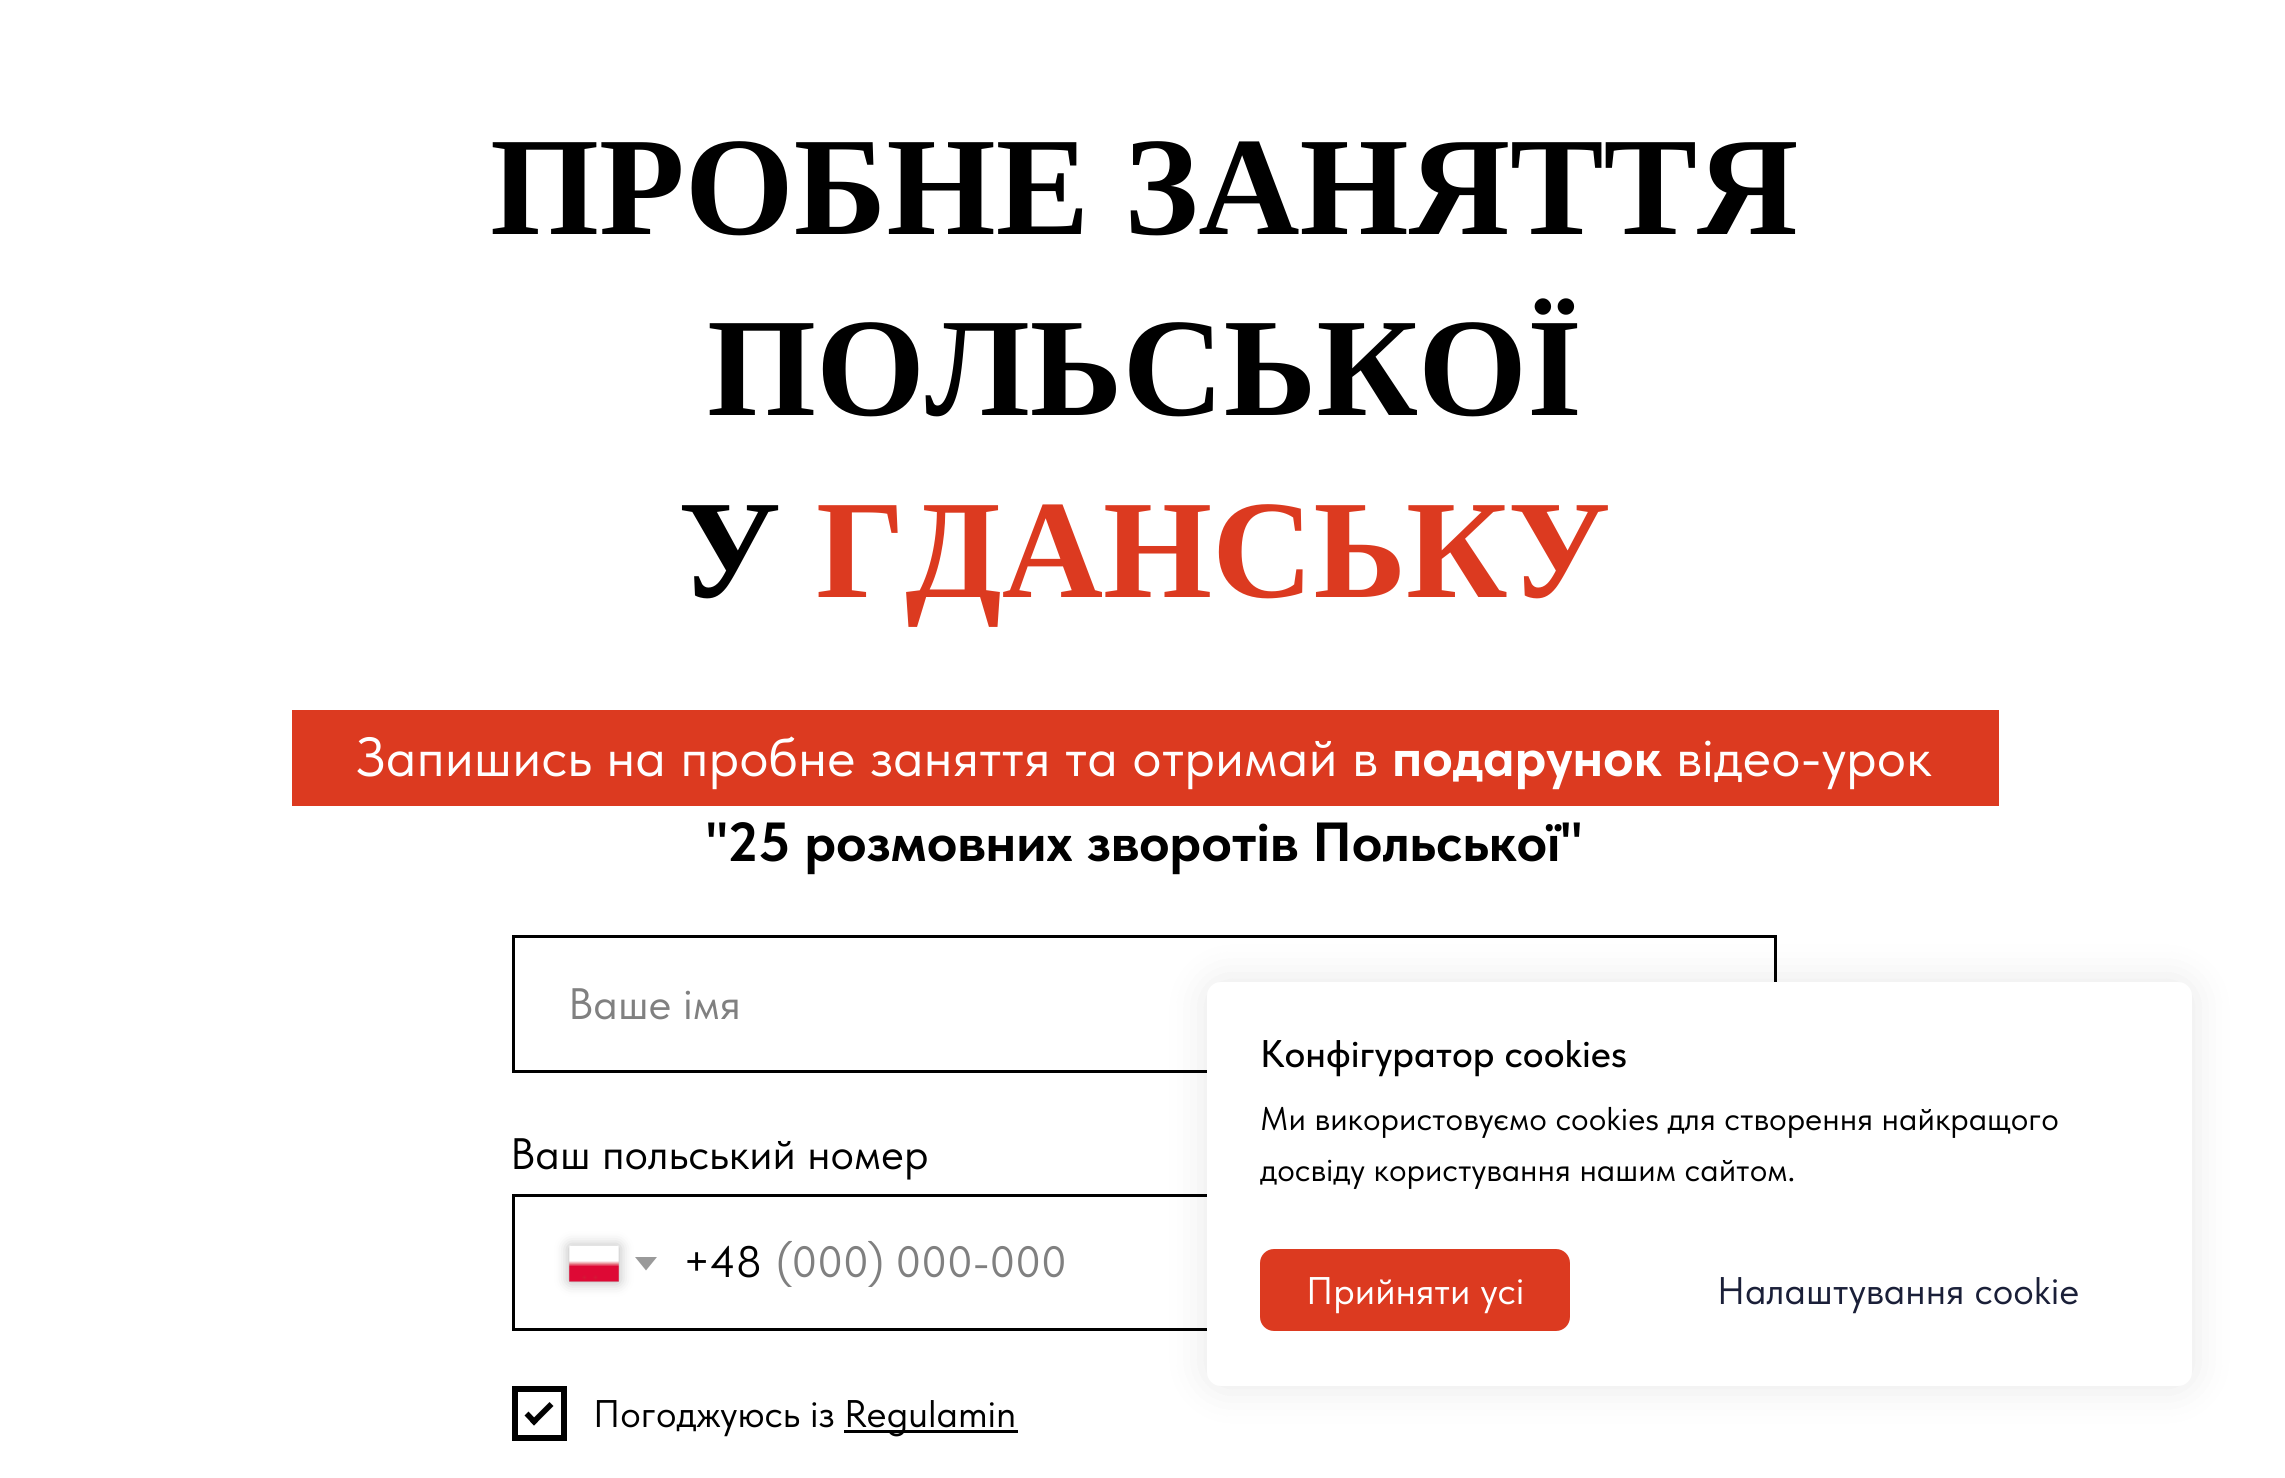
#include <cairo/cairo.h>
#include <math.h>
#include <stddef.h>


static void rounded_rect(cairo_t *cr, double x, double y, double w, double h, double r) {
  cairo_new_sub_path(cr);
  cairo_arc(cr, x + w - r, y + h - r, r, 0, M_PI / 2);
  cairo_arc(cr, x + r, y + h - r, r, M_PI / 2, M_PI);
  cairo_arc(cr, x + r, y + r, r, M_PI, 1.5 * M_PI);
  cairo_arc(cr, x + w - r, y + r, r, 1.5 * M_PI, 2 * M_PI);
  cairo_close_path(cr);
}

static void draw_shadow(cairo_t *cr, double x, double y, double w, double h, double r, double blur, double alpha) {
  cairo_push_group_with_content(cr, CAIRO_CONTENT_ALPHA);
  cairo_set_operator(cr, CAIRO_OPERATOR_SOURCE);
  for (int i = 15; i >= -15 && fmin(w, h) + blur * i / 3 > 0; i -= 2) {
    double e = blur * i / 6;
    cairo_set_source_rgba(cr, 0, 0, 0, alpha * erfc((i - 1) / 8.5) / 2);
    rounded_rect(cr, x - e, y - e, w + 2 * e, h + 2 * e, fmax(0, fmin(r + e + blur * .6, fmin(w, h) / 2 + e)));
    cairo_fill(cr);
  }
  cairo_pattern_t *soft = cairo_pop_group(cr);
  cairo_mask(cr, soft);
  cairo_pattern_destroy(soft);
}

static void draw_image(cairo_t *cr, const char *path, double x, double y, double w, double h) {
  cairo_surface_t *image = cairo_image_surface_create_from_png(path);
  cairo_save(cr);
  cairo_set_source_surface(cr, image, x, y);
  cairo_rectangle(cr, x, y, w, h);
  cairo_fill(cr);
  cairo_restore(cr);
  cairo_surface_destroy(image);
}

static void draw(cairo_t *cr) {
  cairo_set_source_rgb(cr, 1, 1, 1);
  cairo_paint(cr);
  cairo_set_source_rgb(cr, 220 / 255.0, 58 / 255.0, 32 / 255.0);
  cairo_rectangle(cr, 292, 710, 1707, 96);
  cairo_fill(cr);
  cairo_rectangle(cr, 513.5, 936.5, 1262, 135);
  cairo_set_source_rgb(cr, 0, 0, 0);
  cairo_set_line_width(cr, 3);
  cairo_stroke(cr);
  cairo_rectangle(cr, 513.5, 1195.5, 1262, 134);
  cairo_stroke(cr);
  cairo_set_source_rgb(cr, 0, 0, 0);
  draw_shadow(cr, 569, 1246, 50, 36, 0, 7, 0.3);
  cairo_set_source_rgb(cr, 197 / 255.0, 197 / 255.0, 197 / 255.0);
  cairo_rectangle(cr, 569, 1246, 50, 36);
  cairo_fill(cr);
  draw_image(cr, "images/1.png", 569, 1245, 50, 37);
  cairo_set_source_rgb(cr, 154 / 255.0, 154 / 255.0, 154 / 255.0);
  cairo_new_path(cr);
  cairo_move_to(cr, 635, 1257);
  cairo_line_to(cr, 657, 1257);
  cairo_line_to(cr, 646, 1270.5);
  cairo_close_path(cr);
  cairo_fill(cr);
  cairo_rectangle(cr, 515, 1389, 49, 49);
  cairo_set_source_rgb(cr, 0, 0, 0);
  cairo_set_line_width(cr, 6);
  cairo_stroke(cr);
  cairo_new_path(cr);
  cairo_move_to(cr, 549.5, 1402);
  cairo_line_to(cr, 553.5, 1406);
  cairo_line_to(cr, 534, 1425.5);
  cairo_line_to(cr, 530, 1421.5);
  cairo_close_path(cr);
  cairo_fill(cr);
  cairo_new_path(cr);
  cairo_move_to(cr, 528.5, 1411.5);
  cairo_line_to(cr, 538, 1421.5);
  cairo_line_to(cr, 534, 1425.5);
  cairo_line_to(cr, 524.5, 1415.5);
  cairo_close_path(cr);
  cairo_fill(cr);
  cairo_rectangle(cr, 844, 1430, 174, 3);
  cairo_fill(cr);
  cairo_set_source_rgb(cr, 0, 0, 0);
  draw_shadow(cr, 1207, 982, 985, 404, 14, 20.5, 0.1);
  cairo_set_source_rgb(cr, 1, 1, 1);
  rounded_rect(cr, 1207, 982, 985, 404, 14);
  cairo_fill(cr);
  cairo_set_source_rgb(cr, 220 / 255.0, 58 / 255.0, 32 / 255.0);
  rounded_rect(cr, 1260, 1249, 310, 82, 14);
  cairo_fill(cr);
  cairo_select_font_face(cr, "Liberation Serif", CAIRO_FONT_SLANT_NORMAL, CAIRO_FONT_WEIGHT_BOLD);
  cairo_set_font_size(cr, 140.25);
  cairo_set_source_rgb(cr, 0, 0, 0);
  cairo_move_to(cr, 490, 234);
  cairo_show_text(cr, "ПРОБНЕ ЗАНЯТТЯ");
  cairo_move_to(cr, 707, 415);
  cairo_show_text(cr, "ПОЛЬСЬКОЇ");
  cairo_move_to(cr, 678, 597);
  cairo_show_text(cr, "У");
  cairo_set_source_rgb(cr, 220 / 255.0, 58 / 255.0, 32 / 255.0);
  cairo_move_to(cr, 816, 597);
  cairo_show_text(cr, "ГДАНСЬКУ");
  cairo_select_font_face(cr, "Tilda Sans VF", CAIRO_FONT_SLANT_NORMAL, CAIRO_FONT_WEIGHT_NORMAL);
  cairo_set_font_size(cr, 55);
  cairo_set_source_rgb(cr, 1, 1, 1);
  cairo_move_to(cr, 356, 776);
  cairo_show_text(cr, "Запишись на пробне заняття та отримай в");
  cairo_select_font_face(cr, "Tilda Sans VF", CAIRO_FONT_SLANT_NORMAL, CAIRO_FONT_WEIGHT_BOLD);
  cairo_move_to(cr, 1392, 776);
  cairo_show_text(cr, "подарунок");
  cairo_select_font_face(cr, "Tilda Sans VF", CAIRO_FONT_SLANT_NORMAL, CAIRO_FONT_WEIGHT_NORMAL);
  cairo_move_to(cr, 1676, 776);
  cairo_show_text(cr, "відео-урок");
  cairo_select_font_face(cr, "Tilda Sans VF", CAIRO_FONT_SLANT_NORMAL, CAIRO_FONT_WEIGHT_BOLD);
  cairo_set_source_rgb(cr, 0, 0, 0);
  cairo_move_to(cr, 706, 861);
  cairo_show_text(cr, "\"25 розмовних зворотів Польської\"");
  cairo_select_font_face(cr, "Tilda Sans VF", CAIRO_FONT_SLANT_NORMAL, CAIRO_FONT_WEIGHT_NORMAL);
  cairo_set_font_size(cr, 44);
  cairo_set_source_rgb(cr, 128 / 255.0, 128 / 255.0, 128 / 255.0);
  cairo_move_to(cr, 568, 1019);
  cairo_show_text(cr, "Ваше імя");
  cairo_set_source_rgb(cr, 0, 0, 0);
  cairo_move_to(cr, 510, 1169);
  cairo_show_text(cr, "Ваш польський номер");
  cairo_move_to(cr, 683, 1277);
  cairo_show_text(cr, "+48");
  cairo_save(cr);
  cairo_rectangle(cr, 776, 1235, 943, 52);
  cairo_clip(cr);
  cairo_set_source_rgb(cr, 128 / 255.0, 128 / 255.0, 128 / 255.0);
  cairo_move_to(cr, 776, 1277);
  cairo_show_text(cr, "(000) 000-000");
  cairo_restore(cr);
  cairo_set_font_size(cr, 38.5);
  cairo_move_to(cr, 593, 1427);
  cairo_show_text(cr, "Погоджуюсь із");
  cairo_move_to(cr, 844, 1427);
  cairo_show_text(cr, "Regulamin");
  cairo_select_font_face(cr, "Tilda Sans VF Medium", CAIRO_FONT_SLANT_NORMAL, CAIRO_FONT_WEIGHT_NORMAL);
  cairo_move_to(cr, 1260, 1067);
  cairo_show_text(cr, "Конфігуратор cookies");
  cairo_select_font_face(cr, "Tilda Sans VF", CAIRO_FONT_SLANT_NORMAL, CAIRO_FONT_WEIGHT_NORMAL);
  cairo_set_font_size(cr, 33);
  cairo_move_to(cr, 1260, 1130);
  cairo_show_text(cr, "Ми використовуємо cookies для створення найкращого");
  cairo_move_to(cr, 1260, 1181);
  cairo_show_text(cr, "досвіду користування нашим сайтом.");
  cairo_set_font_size(cr, 38.5);
  cairo_set_source_rgb(cr, 1, 1, 1);
  cairo_move_to(cr, 1306, 1304);
  cairo_show_text(cr, "Прийняти усі");
  cairo_set_source_rgb(cr, 26 / 255.0, 31 / 255.0, 56 / 255.0);
  cairo_move_to(cr, 1717, 1304);
  cairo_show_text(cr, "Налаштування cookie");
}

int main(void) {
  cairo_surface_t *surface = cairo_image_surface_create(CAIRO_FORMAT_RGB24, 2285, 1478);
  cairo_t *cr = cairo_create(surface);
  cairo_font_options_t *options = cairo_font_options_create();
  cairo_font_options_set_hint_metrics(options, CAIRO_HINT_METRICS_OFF);
  cairo_font_options_set_hint_style(options, CAIRO_HINT_STYLE_NONE);
  cairo_set_font_options(cr, options);
  cairo_set_miter_limit(cr, 4);
  draw(cr);
  cairo_surface_write_to_png(surface, "out.png");
  cairo_font_options_destroy(options);
  cairo_destroy(cr);
  cairo_surface_destroy(surface);
  return 0;
}
